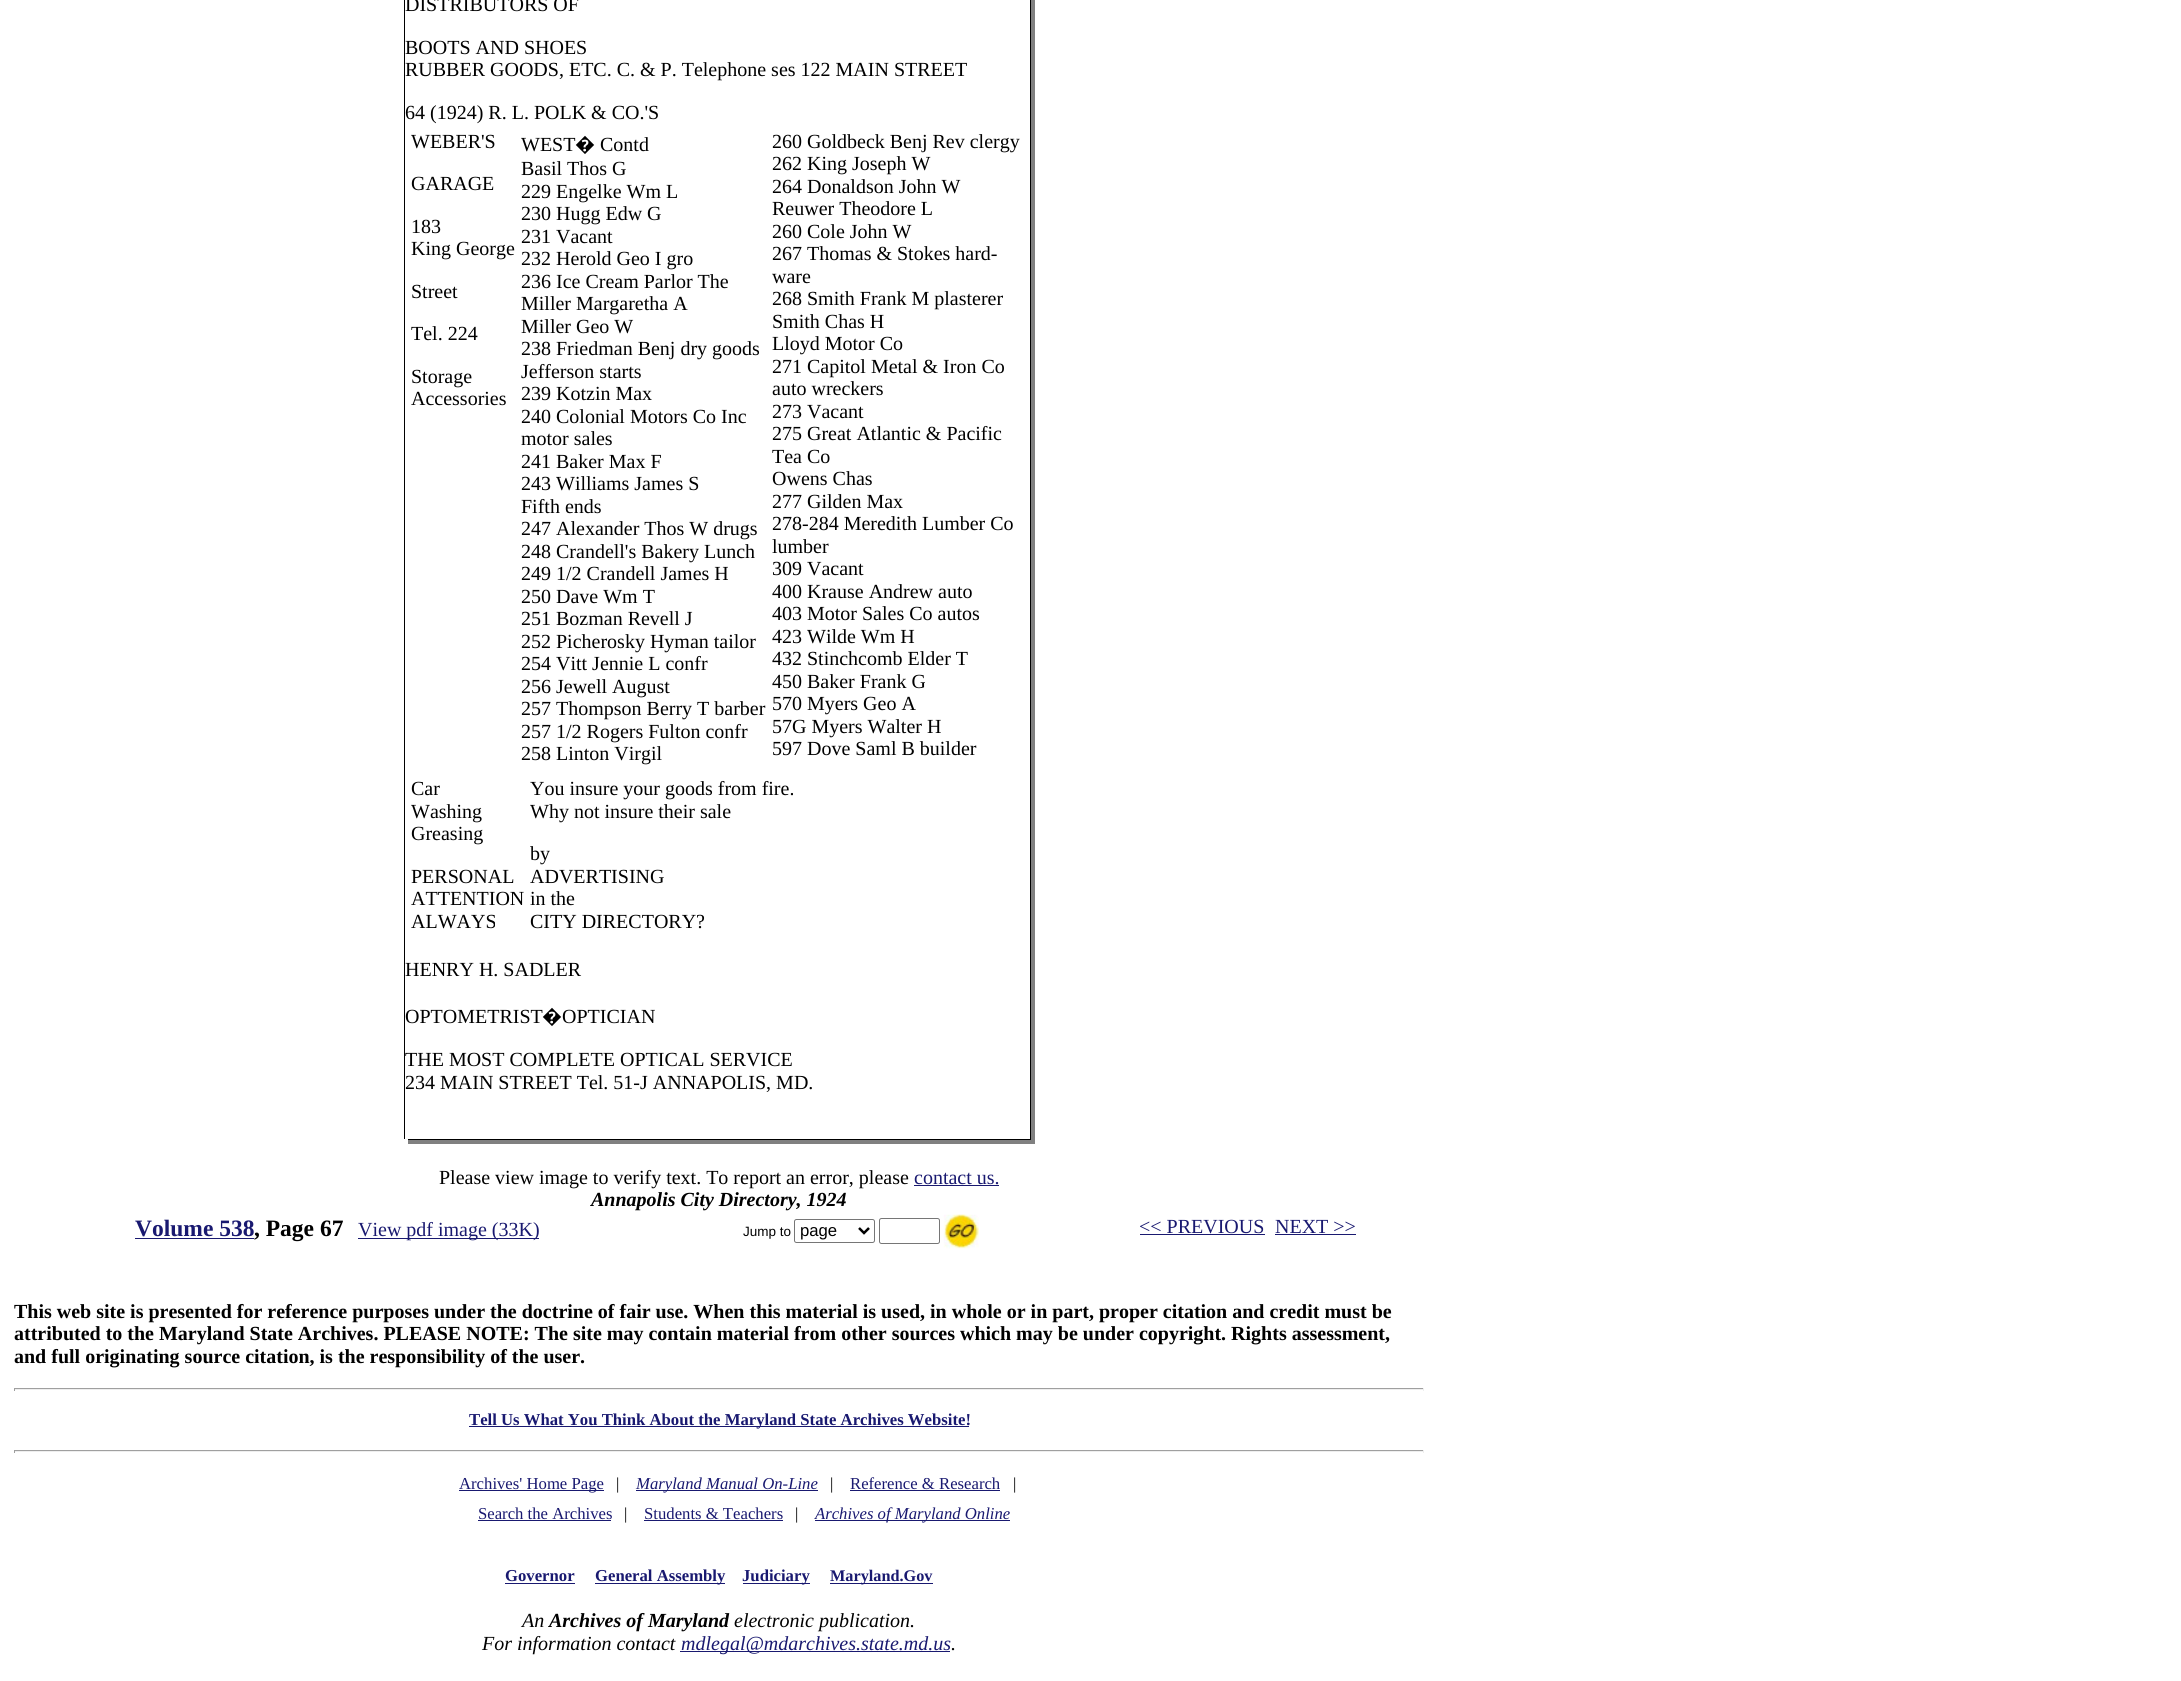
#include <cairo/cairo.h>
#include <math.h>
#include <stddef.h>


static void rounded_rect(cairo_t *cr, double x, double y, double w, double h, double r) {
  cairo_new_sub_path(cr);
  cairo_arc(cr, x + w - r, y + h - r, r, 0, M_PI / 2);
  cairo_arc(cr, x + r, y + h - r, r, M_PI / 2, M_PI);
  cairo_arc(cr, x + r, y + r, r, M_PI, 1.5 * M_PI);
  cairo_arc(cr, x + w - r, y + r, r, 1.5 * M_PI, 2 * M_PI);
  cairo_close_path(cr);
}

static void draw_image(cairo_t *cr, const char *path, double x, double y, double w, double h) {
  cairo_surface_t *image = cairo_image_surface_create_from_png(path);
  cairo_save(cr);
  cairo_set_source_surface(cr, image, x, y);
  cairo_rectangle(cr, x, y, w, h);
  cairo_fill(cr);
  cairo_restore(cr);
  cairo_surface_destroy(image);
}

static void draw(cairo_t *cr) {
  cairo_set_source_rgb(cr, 1, 1, 1);
  cairo_paint(cr);
  cairo_set_source_rgb(cr, 0, 0, 0);
  cairo_rectangle(cr, 404, 0, 1, 1140);
  cairo_fill(cr);
  cairo_rectangle(cr, 1030, 0, 1, 1140);
  cairo_fill(cr);
  cairo_set_source_rgb(cr, 128 / 255.0, 128 / 255.0, 128 / 255.0);
  cairo_rectangle(cr, 1031, 0, 4, 1144);
  cairo_fill(cr);
  cairo_rectangle(cr, 404, 1140, 627, 4);
  cairo_fill(cr);
  cairo_set_source_rgb(cr, 0, 0, 0);
  cairo_rectangle(cr, 405, 1139, 625, 1);
  cairo_fill(cr);
  cairo_set_source_rgb(cr, 1, 1, 1);
  cairo_rectangle(cr, 404, 1139, 4, 5);
  cairo_fill(cr);
  cairo_set_source_rgb(cr, 25 / 255.0, 25 / 255.0, 112 / 255.0);
  cairo_rectangle(cr, 914, 1185, 85, 1);
  cairo_fill(cr);
  cairo_rectangle(cr, 135, 1238, 119, 1);
  cairo_fill(cr);
  cairo_rectangle(cr, 358, 1238, 181, 1);
  cairo_fill(cr);
  rounded_rect(cr, 794.5, 1219.5, 80, 23, 2);
  cairo_set_source_rgb(cr, 118 / 255.0, 118 / 255.0, 118 / 255.0);
  cairo_set_line_width(cr, 1);
  cairo_stroke(cr);
  cairo_new_path(cr);
  cairo_move_to(cr, 859, 1228);
  cairo_line_to(cr, 864, 1233);
  cairo_line_to(cr, 869, 1228);
  cairo_set_source_rgb(cr, 0, 0, 0);
  cairo_set_line_width(cr, 2.5);
  cairo_stroke(cr);
  rounded_rect(cr, 879.5, 1218.5, 60, 25, 2);
  cairo_set_source_rgb(cr, 118 / 255.0, 118 / 255.0, 118 / 255.0);
  cairo_set_line_width(cr, 1);
  cairo_stroke(cr);
  draw_image(cr, "images/1.png", 943, 1214, 36, 35);
  cairo_set_source_rgb(cr, 25 / 255.0, 25 / 255.0, 112 / 255.0);
  cairo_rectangle(cr, 1140, 1234, 125, 1);
  cairo_fill(cr);
  cairo_rectangle(cr, 1275, 1234, 81, 1);
  cairo_fill(cr);
  cairo_set_source_rgb(cr, 159 / 255.0, 159 / 255.0, 159 / 255.0);
  cairo_rectangle(cr, 14, 1388, 1410, 1);
  cairo_fill(cr);
  cairo_set_source_rgb(cr, 238 / 255.0, 238 / 255.0, 238 / 255.0);
  cairo_rectangle(cr, 1423, 1388, 1, 3);
  cairo_fill(cr);
  cairo_rectangle(cr, 14, 1389, 1410, 1);
  cairo_fill(cr);
  cairo_set_source_rgb(cr, 159 / 255.0, 159 / 255.0, 159 / 255.0);
  cairo_rectangle(cr, 14, 1388, 1, 3);
  cairo_fill(cr);
  cairo_set_source_rgb(cr, 25 / 255.0, 25 / 255.0, 112 / 255.0);
  cairo_rectangle(cr, 469, 1426, 500, 1);
  cairo_fill(cr);
  cairo_set_source_rgb(cr, 159 / 255.0, 159 / 255.0, 159 / 255.0);
  cairo_rectangle(cr, 14, 1450, 1410, 1);
  cairo_fill(cr);
  cairo_set_source_rgb(cr, 238 / 255.0, 238 / 255.0, 238 / 255.0);
  cairo_rectangle(cr, 1423, 1450, 1, 3);
  cairo_fill(cr);
  cairo_rectangle(cr, 14, 1451, 1410, 1);
  cairo_fill(cr);
  cairo_set_source_rgb(cr, 159 / 255.0, 159 / 255.0, 159 / 255.0);
  cairo_rectangle(cr, 14, 1450, 1, 3);
  cairo_fill(cr);
  cairo_set_source_rgb(cr, 25 / 255.0, 25 / 255.0, 112 / 255.0);
  cairo_rectangle(cr, 459, 1490, 145, 1);
  cairo_fill(cr);
  cairo_rectangle(cr, 636, 1490, 182, 1);
  cairo_fill(cr);
  cairo_rectangle(cr, 850, 1490, 150, 1);
  cairo_fill(cr);
  cairo_rectangle(cr, 478, 1520, 133, 1);
  cairo_fill(cr);
  cairo_rectangle(cr, 644, 1520, 139, 1);
  cairo_fill(cr);
  cairo_rectangle(cr, 815, 1520, 195, 1);
  cairo_fill(cr);
  cairo_rectangle(cr, 505, 1583, 70, 1);
  cairo_fill(cr);
  cairo_rectangle(cr, 595, 1583, 130, 1);
  cairo_fill(cr);
  cairo_rectangle(cr, 743, 1583, 67, 1);
  cairo_fill(cr);
  cairo_rectangle(cr, 830, 1583, 103, 1);
  cairo_fill(cr);
  cairo_rectangle(cr, 680, 1651, 270, 1);
  cairo_fill(cr);
  cairo_select_font_face(cr, "Liberation Serif", CAIRO_FONT_SLANT_NORMAL, CAIRO_FONT_WEIGHT_NORMAL);
  cairo_set_font_size(cr, 20);
  cairo_set_source_rgb(cr, 0, 0, 0);
  cairo_move_to(cr, 405, 11);
  cairo_show_text(cr, "DISTRIBUTORS OF");
  cairo_move_to(cr, 405, 54);
  cairo_show_text(cr, "BOOTS AND SHOES");
  cairo_move_to(cr, 405, 76);
  cairo_show_text(cr, "RUBBER GOODS, ETC. C. & P. Telephone ses 122 MAIN STREET");
  cairo_move_to(cr, 405, 119);
  cairo_show_text(cr, "64 (1924) R. L. POLK & CO.'S");
  cairo_move_to(cr, 411, 148);
  cairo_show_text(cr, "WEBER'S");
  cairo_move_to(cr, 411, 190);
  cairo_show_text(cr, "GARAGE");
  cairo_move_to(cr, 411, 233);
  cairo_show_text(cr, "183");
  cairo_move_to(cr, 411, 255);
  cairo_show_text(cr, "King George");
  cairo_move_to(cr, 411, 298);
  cairo_show_text(cr, "Street");
  cairo_move_to(cr, 411, 340);
  cairo_show_text(cr, "Tel. 224");
  cairo_move_to(cr, 411, 383);
  cairo_show_text(cr, "Storage");
  cairo_move_to(cr, 411, 405);
  cairo_show_text(cr, "Accessories");
  cairo_move_to(cr, 521, 151);
  cairo_show_text(cr, "WEST");
  cairo_select_font_face(cr, "Noto Sans", CAIRO_FONT_SLANT_NORMAL, CAIRO_FONT_WEIGHT_NORMAL);
  cairo_move_to(cr, 575, 151);
  cairo_show_text(cr, "�");
  cairo_select_font_face(cr, "Liberation Serif", CAIRO_FONT_SLANT_NORMAL, CAIRO_FONT_WEIGHT_NORMAL);
  cairo_move_to(cr, 600, 151);
  cairo_show_text(cr, "Contd");
  cairo_move_to(cr, 521, 175);
  cairo_show_text(cr, "Basil Thos G");
  cairo_move_to(cr, 521, 198);
  cairo_show_text(cr, "229 Engelke Wm L");
  cairo_move_to(cr, 521, 220);
  cairo_show_text(cr, "230 Hugg Edw G");
  cairo_move_to(cr, 521, 243);
  cairo_show_text(cr, "231 Vacant");
  cairo_move_to(cr, 521, 265);
  cairo_show_text(cr, "232 Herold Geo I gro");
  cairo_move_to(cr, 521, 288);
  cairo_show_text(cr, "236 Ice Cream Parlor The");
  cairo_move_to(cr, 521, 310);
  cairo_show_text(cr, "Miller Margaretha A");
  cairo_move_to(cr, 521, 333);
  cairo_show_text(cr, "Miller Geo W");
  cairo_move_to(cr, 521, 355);
  cairo_show_text(cr, "238 Friedman Benj dry goods");
  cairo_move_to(cr, 521, 378);
  cairo_show_text(cr, "Jefferson starts");
  cairo_move_to(cr, 521, 400);
  cairo_show_text(cr, "239 Kotzin Max");
  cairo_move_to(cr, 521, 423);
  cairo_show_text(cr, "240 Colonial Motors Co Inc");
  cairo_move_to(cr, 521, 445);
  cairo_show_text(cr, "motor sales");
  cairo_move_to(cr, 521, 468);
  cairo_show_text(cr, "241 Baker Max F");
  cairo_move_to(cr, 521, 490);
  cairo_show_text(cr, "243 Williams James S");
  cairo_move_to(cr, 521, 513);
  cairo_show_text(cr, "Fifth ends");
  cairo_move_to(cr, 521, 535);
  cairo_show_text(cr, "247 Alexander Thos W drugs");
  cairo_move_to(cr, 521, 558);
  cairo_show_text(cr, "248 Crandell's Bakery Lunch");
  cairo_move_to(cr, 521, 580);
  cairo_show_text(cr, "249 1/2 Crandell James H");
  cairo_move_to(cr, 521, 603);
  cairo_show_text(cr, "250 Dave Wm T");
  cairo_move_to(cr, 521, 625);
  cairo_show_text(cr, "251 Bozman Revell J");
  cairo_move_to(cr, 521, 648);
  cairo_show_text(cr, "252 Picherosky Hyman tailor");
  cairo_move_to(cr, 521, 670);
  cairo_show_text(cr, "254 Vitt Jennie L confr");
  cairo_move_to(cr, 521, 693);
  cairo_show_text(cr, "256 Jewell August");
  cairo_move_to(cr, 521, 715);
  cairo_show_text(cr, "257 Thompson Berry T barber");
  cairo_move_to(cr, 521, 738);
  cairo_show_text(cr, "257 1/2 Rogers Fulton confr");
  cairo_move_to(cr, 521, 760);
  cairo_show_text(cr, "258 Linton Virgil");
  cairo_move_to(cr, 772, 148);
  cairo_show_text(cr, "260 Goldbeck Benj Rev clergy");
  cairo_move_to(cr, 772, 170);
  cairo_show_text(cr, "262 King Joseph W");
  cairo_move_to(cr, 772, 193);
  cairo_show_text(cr, "264 Donaldson John W");
  cairo_move_to(cr, 772, 215);
  cairo_show_text(cr, "Reuwer Theodore L");
  cairo_move_to(cr, 772, 238);
  cairo_show_text(cr, "260 Cole John W");
  cairo_move_to(cr, 772, 260);
  cairo_show_text(cr, "267 Thomas & Stokes hard-");
  cairo_move_to(cr, 772, 283);
  cairo_show_text(cr, "ware");
  cairo_move_to(cr, 772, 305);
  cairo_show_text(cr, "268 Smith Frank M plasterer");
  cairo_move_to(cr, 772, 328);
  cairo_show_text(cr, "Smith Chas H");
  cairo_move_to(cr, 772, 350);
  cairo_show_text(cr, "Lloyd Motor Co");
  cairo_move_to(cr, 772, 373);
  cairo_show_text(cr, "271 Capitol Metal & Iron Co");
  cairo_move_to(cr, 772, 395);
  cairo_show_text(cr, "auto wreckers");
  cairo_move_to(cr, 772, 418);
  cairo_show_text(cr, "273 Vacant");
  cairo_move_to(cr, 772, 440);
  cairo_show_text(cr, "275 Great Atlantic & Pacific");
  cairo_move_to(cr, 772, 463);
  cairo_show_text(cr, "Tea Co");
  cairo_move_to(cr, 772, 485);
  cairo_show_text(cr, "Owens Chas");
  cairo_move_to(cr, 772, 508);
  cairo_show_text(cr, "277 Gilden Max");
  cairo_move_to(cr, 772, 530);
  cairo_show_text(cr, "278-284 Meredith Lumber Co");
  cairo_move_to(cr, 772, 553);
  cairo_show_text(cr, "lumber");
  cairo_move_to(cr, 772, 575);
  cairo_show_text(cr, "309 Vacant");
  cairo_move_to(cr, 772, 598);
  cairo_show_text(cr, "400 Krause Andrew auto");
  cairo_move_to(cr, 772, 620);
  cairo_show_text(cr, "403 Motor Sales Co autos");
  cairo_move_to(cr, 772, 643);
  cairo_show_text(cr, "423 Wilde Wm H");
  cairo_move_to(cr, 772, 665);
  cairo_show_text(cr, "432 Stinchcomb Elder T");
  cairo_move_to(cr, 772, 688);
  cairo_show_text(cr, "450 Baker Frank G");
  cairo_move_to(cr, 772, 710);
  cairo_show_text(cr, "570 Myers Geo A");
  cairo_move_to(cr, 772, 733);
  cairo_show_text(cr, "57G Myers Walter H");
  cairo_move_to(cr, 772, 755);
  cairo_show_text(cr, "597 Dove Saml B builder");
  cairo_move_to(cr, 411, 795);
  cairo_show_text(cr, "Car");
  cairo_move_to(cr, 411, 818);
  cairo_show_text(cr, "Washing");
  cairo_move_to(cr, 411, 840);
  cairo_show_text(cr, "Greasing");
  cairo_move_to(cr, 411, 883);
  cairo_show_text(cr, "PERSONAL");
  cairo_move_to(cr, 411, 905);
  cairo_show_text(cr, "ATTENTION");
  cairo_move_to(cr, 411, 928);
  cairo_show_text(cr, "ALWAYS");
  cairo_move_to(cr, 530, 795);
  cairo_show_text(cr, "You insure your goods from fire.");
  cairo_move_to(cr, 530, 818);
  cairo_show_text(cr, "Why not insure their sale");
  cairo_move_to(cr, 530, 860);
  cairo_show_text(cr, "by");
  cairo_move_to(cr, 530, 883);
  cairo_show_text(cr, "ADVERTISING");
  cairo_move_to(cr, 530, 905);
  cairo_show_text(cr, "in the");
  cairo_move_to(cr, 530, 928);
  cairo_show_text(cr, "CITY DIRECTORY?");
  cairo_move_to(cr, 405, 976);
  cairo_show_text(cr, "HENRY H. SADLER");
  cairo_move_to(cr, 405, 1023);
  cairo_show_text(cr, "OPTOMETRIST");
  cairo_select_font_face(cr, "Noto Sans", CAIRO_FONT_SLANT_NORMAL, CAIRO_FONT_WEIGHT_NORMAL);
  cairo_move_to(cr, 542, 1023);
  cairo_show_text(cr, "�");
  cairo_select_font_face(cr, "Liberation Serif", CAIRO_FONT_SLANT_NORMAL, CAIRO_FONT_WEIGHT_NORMAL);
  cairo_move_to(cr, 562, 1023);
  cairo_show_text(cr, "OPTICIAN");
  cairo_move_to(cr, 405, 1066);
  cairo_show_text(cr, "THE MOST COMPLETE OPTICAL SERVICE");
  cairo_move_to(cr, 405, 1089);
  cairo_show_text(cr, "234 MAIN STREET Tel. 51-J ANNAPOLIS, MD.");
  cairo_move_to(cr, 439, 1184);
  cairo_show_text(cr, "Please view image to verify text. To report an error, please");
  cairo_set_source_rgb(cr, 25 / 255.0, 25 / 255.0, 112 / 255.0);
  cairo_move_to(cr, 914, 1184);
  cairo_show_text(cr, "contact us.");
  cairo_select_font_face(cr, "Liberation Serif", CAIRO_FONT_SLANT_ITALIC, CAIRO_FONT_WEIGHT_BOLD);
  cairo_set_source_rgb(cr, 0, 0, 0);
  cairo_move_to(cr, 591, 1206);
  cairo_show_text(cr, "Annapolis City Directory, 1924");
  cairo_select_font_face(cr, "Liberation Serif", CAIRO_FONT_SLANT_NORMAL, CAIRO_FONT_WEIGHT_BOLD);
  cairo_set_font_size(cr, 23.5);
  cairo_set_source_rgb(cr, 25 / 255.0, 25 / 255.0, 112 / 255.0);
  cairo_move_to(cr, 135, 1236);
  cairo_show_text(cr, "Volume 538");
  cairo_set_source_rgb(cr, 0, 0, 0);
  cairo_move_to(cr, 254, 1236);
  cairo_show_text(cr, ", Page 67");
  cairo_select_font_face(cr, "Liberation Serif", CAIRO_FONT_SLANT_NORMAL, CAIRO_FONT_WEIGHT_NORMAL);
  cairo_set_font_size(cr, 20);
  cairo_set_source_rgb(cr, 25 / 255.0, 25 / 255.0, 112 / 255.0);
  cairo_move_to(cr, 358, 1236);
  cairo_show_text(cr, "View pdf image (33K)");
  cairo_select_font_face(cr, "Liberation Sans", CAIRO_FONT_SLANT_NORMAL, CAIRO_FONT_WEIGHT_NORMAL);
  cairo_set_font_size(cr, 13.5);
  cairo_set_source_rgb(cr, 0, 0, 0);
  cairo_move_to(cr, 743, 1236);
  cairo_show_text(cr, "Jump to");
  cairo_set_font_size(cr, 16.7);
  cairo_move_to(cr, 800, 1236);
  cairo_show_text(cr, "page");
  cairo_select_font_face(cr, "Liberation Serif", CAIRO_FONT_SLANT_NORMAL, CAIRO_FONT_WEIGHT_NORMAL);
  cairo_set_font_size(cr, 20);
  cairo_set_source_rgb(cr, 25 / 255.0, 25 / 255.0, 112 / 255.0);
  cairo_move_to(cr, 1139, 1233);
  cairo_show_text(cr, "<< PREVIOUS");
  cairo_move_to(cr, 1275, 1233);
  cairo_show_text(cr, "NEXT >>");
  cairo_select_font_face(cr, "Liberation Serif", CAIRO_FONT_SLANT_NORMAL, CAIRO_FONT_WEIGHT_BOLD);
  cairo_set_source_rgb(cr, 0, 0, 0);
  cairo_move_to(cr, 14, 1318);
  cairo_show_text(cr, "This web site is presented for reference purposes under the doctrine of fair use. When this material is used, in whole or in part, proper citation and credit must be");
  cairo_move_to(cr, 14, 1340);
  cairo_show_text(cr, "attributed to the Maryland State Archives. PLEASE NOTE: The site may contain material from other sources which may be under copyright. Rights assessment,");
  cairo_move_to(cr, 14, 1363);
  cairo_show_text(cr, "and full originating source citation, is the responsibility of the user.");
  cairo_set_font_size(cr, 16.7);
  cairo_set_source_rgb(cr, 25 / 255.0, 25 / 255.0, 112 / 255.0);
  cairo_move_to(cr, 469, 1425);
  cairo_show_text(cr, "Tell Us What You Think About the Maryland State Archives Website!");
  cairo_select_font_face(cr, "Liberation Serif", CAIRO_FONT_SLANT_NORMAL, CAIRO_FONT_WEIGHT_NORMAL);
  cairo_move_to(cr, 459, 1489);
  cairo_show_text(cr, "Archives' Home Page");
  cairo_set_source_rgb(cr, 0, 0, 0);
  cairo_move_to(cr, 616, 1489);
  cairo_show_text(cr, "|");
  cairo_select_font_face(cr, "Liberation Serif", CAIRO_FONT_SLANT_ITALIC, CAIRO_FONT_WEIGHT_NORMAL);
  cairo_set_source_rgb(cr, 25 / 255.0, 25 / 255.0, 112 / 255.0);
  cairo_move_to(cr, 636, 1489);
  cairo_show_text(cr, "Maryland Manual On-Line");
  cairo_select_font_face(cr, "Liberation Serif", CAIRO_FONT_SLANT_NORMAL, CAIRO_FONT_WEIGHT_NORMAL);
  cairo_set_source_rgb(cr, 0, 0, 0);
  cairo_move_to(cr, 830, 1489);
  cairo_show_text(cr, "|");
  cairo_set_source_rgb(cr, 25 / 255.0, 25 / 255.0, 112 / 255.0);
  cairo_move_to(cr, 850, 1489);
  cairo_show_text(cr, "Reference & Research");
  cairo_set_source_rgb(cr, 0, 0, 0);
  cairo_move_to(cr, 1013, 1489);
  cairo_show_text(cr, "|");
  cairo_set_source_rgb(cr, 25 / 255.0, 25 / 255.0, 112 / 255.0);
  cairo_move_to(cr, 478, 1519);
  cairo_show_text(cr, "Search the Archives");
  cairo_set_source_rgb(cr, 0, 0, 0);
  cairo_move_to(cr, 624, 1519);
  cairo_show_text(cr, "|");
  cairo_set_source_rgb(cr, 25 / 255.0, 25 / 255.0, 112 / 255.0);
  cairo_move_to(cr, 644, 1519);
  cairo_show_text(cr, "Students & Teachers");
  cairo_set_source_rgb(cr, 0, 0, 0);
  cairo_move_to(cr, 795, 1519);
  cairo_show_text(cr, "|");
  cairo_select_font_face(cr, "Liberation Serif", CAIRO_FONT_SLANT_ITALIC, CAIRO_FONT_WEIGHT_NORMAL);
  cairo_set_source_rgb(cr, 25 / 255.0, 25 / 255.0, 112 / 255.0);
  cairo_move_to(cr, 815, 1519);
  cairo_show_text(cr, "Archives of Maryland Online");
  cairo_select_font_face(cr, "Liberation Serif", CAIRO_FONT_SLANT_NORMAL, CAIRO_FONT_WEIGHT_BOLD);
  cairo_move_to(cr, 505, 1581);
  cairo_show_text(cr, "Governor");
  cairo_move_to(cr, 595, 1581);
  cairo_show_text(cr, "General Assembly");
  cairo_move_to(cr, 742, 1581);
  cairo_show_text(cr, "Judiciary");
  cairo_set_font_size(cr, 16.25);
  cairo_move_to(cr, 830, 1581);
  cairo_show_text(cr, "Maryland.Gov");
  cairo_select_font_face(cr, "Liberation Serif", CAIRO_FONT_SLANT_ITALIC, CAIRO_FONT_WEIGHT_NORMAL);
  cairo_set_font_size(cr, 20);
  cairo_set_source_rgb(cr, 0, 0, 0);
  cairo_move_to(cr, 522, 1627);
  cairo_show_text(cr, "An");
  cairo_select_font_face(cr, "Liberation Serif", CAIRO_FONT_SLANT_ITALIC, CAIRO_FONT_WEIGHT_BOLD);
  cairo_move_to(cr, 549, 1627);
  cairo_show_text(cr, "Archives of Maryland");
  cairo_select_font_face(cr, "Liberation Serif", CAIRO_FONT_SLANT_ITALIC, CAIRO_FONT_WEIGHT_NORMAL);
  cairo_move_to(cr, 734, 1627);
  cairo_show_text(cr, "electronic publication.");
  cairo_move_to(cr, 482, 1650);
  cairo_show_text(cr, "For information contact");
  cairo_set_source_rgb(cr, 25 / 255.0, 25 / 255.0, 112 / 255.0);
  cairo_move_to(cr, 681, 1650);
  cairo_show_text(cr, "mdlegal@mdarchives.state.md.us");
  cairo_set_source_rgb(cr, 0, 0, 0);
  cairo_move_to(cr, 951, 1650);
  cairo_show_text(cr, ".");
}

int main(void) {
  cairo_surface_t *surface = cairo_image_surface_create(CAIRO_FORMAT_RGB24, 2181, 1681);
  cairo_t *cr = cairo_create(surface);
  cairo_font_options_t *options = cairo_font_options_create();
  cairo_font_options_set_hint_metrics(options, CAIRO_HINT_METRICS_OFF);
  cairo_font_options_set_hint_style(options, CAIRO_HINT_STYLE_NONE);
  cairo_set_font_options(cr, options);
  cairo_set_miter_limit(cr, 4);
  draw(cr);
  cairo_surface_write_to_png(surface, "out.png");
  cairo_font_options_destroy(options);
  cairo_destroy(cr);
  cairo_surface_destroy(surface);
  return 0;
}
